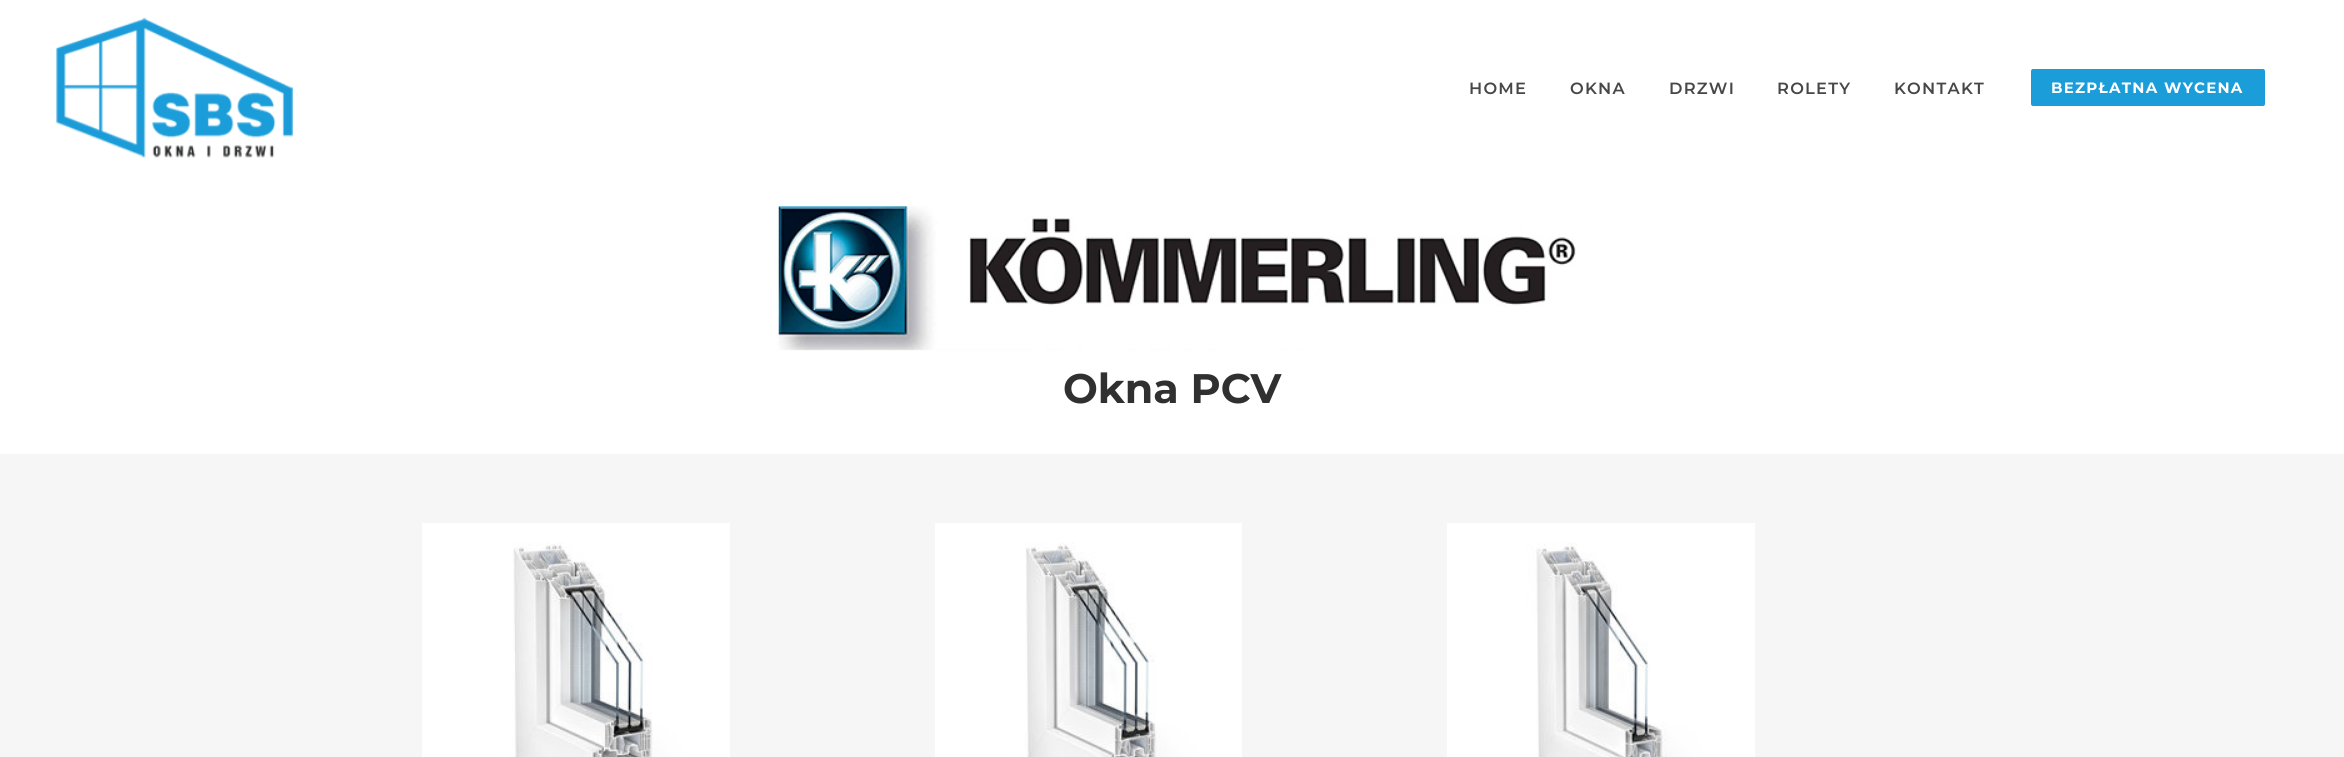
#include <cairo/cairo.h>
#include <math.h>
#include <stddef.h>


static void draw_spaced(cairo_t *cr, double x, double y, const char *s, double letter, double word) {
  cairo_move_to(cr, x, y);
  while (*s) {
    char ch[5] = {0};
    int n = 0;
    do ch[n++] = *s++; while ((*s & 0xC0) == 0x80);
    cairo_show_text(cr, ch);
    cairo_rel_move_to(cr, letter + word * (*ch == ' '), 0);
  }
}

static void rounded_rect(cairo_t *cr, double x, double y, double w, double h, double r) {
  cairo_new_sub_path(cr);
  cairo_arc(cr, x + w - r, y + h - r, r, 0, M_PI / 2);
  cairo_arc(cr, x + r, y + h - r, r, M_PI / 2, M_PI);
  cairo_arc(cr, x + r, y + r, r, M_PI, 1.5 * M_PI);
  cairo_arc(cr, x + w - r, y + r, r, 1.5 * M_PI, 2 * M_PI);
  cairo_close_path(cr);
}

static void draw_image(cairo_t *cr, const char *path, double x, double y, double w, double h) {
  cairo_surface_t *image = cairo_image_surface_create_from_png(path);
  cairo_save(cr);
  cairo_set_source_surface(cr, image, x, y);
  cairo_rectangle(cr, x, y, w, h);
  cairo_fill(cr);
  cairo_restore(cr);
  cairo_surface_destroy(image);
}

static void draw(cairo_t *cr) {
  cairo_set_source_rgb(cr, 246 / 255.0, 246 / 255.0, 246 / 255.0);
  cairo_paint(cr);
  cairo_set_source_rgb(cr, 1, 1, 1);
  cairo_rectangle(cr, 0, 0, 2344, 454);
  cairo_fill(cr);
  draw_image(cr, "images/1.png", 56, 17, 237, 141);
  cairo_set_source_rgb(cr, 27 / 255.0, 157 / 255.0, 217 / 255.0);
  rounded_rect(cr, 2029.5, 67.5, 237, 40, 3.5);
  cairo_fill_preserve(cr);
  cairo_set_source_rgb(cr, 1, 1, 1);
  cairo_set_line_width(cr, 3);
  cairo_stroke(cr);
  draw_image(cr, "images/2.png", 775, 206, 801, 145);
  draw_image(cr, "images/3.png", 422, 523, 308, 234);
  draw_image(cr, "images/4.png", 935, 523, 307, 234);
  draw_image(cr, "images/5.png", 1447, 523, 308, 234);
  cairo_select_font_face(cr, "Montserrat SemiBold", CAIRO_FONT_SLANT_NORMAL, CAIRO_FONT_WEIGHT_NORMAL);
  cairo_set_font_size(cr, 16.25);
  cairo_set_source_rgb(cr, 71 / 255.0, 71 / 255.0, 71 / 255.0);
  draw_spaced(cr, 1469, 94, "HOME", 1.25, 0);
  draw_spaced(cr, 1570, 94, "OKNA", 1.25, 0);
  draw_spaced(cr, 1669, 94, "DRZWI", 1.25, 0);
  draw_spaced(cr, 1777, 94, "ROLETY", 1.25, 0);
  draw_spaced(cr, 1894, 94, "KONTAKT", 1.25, 0);
  cairo_select_font_face(cr, "Montserrat", CAIRO_FONT_SLANT_NORMAL, CAIRO_FONT_WEIGHT_BOLD);
  cairo_set_font_size(cr, 15);
  cairo_set_source_rgb(cr, 1, 1, 1);
  draw_spaced(cr, 2051, 93, "BEZPŁATNA WYCENA", 1.25, 0);
  cairo_set_font_size(cr, 41.25);
  cairo_set_source_rgb(cr, 48 / 255.0, 48 / 255.0, 48 / 255.0);
  cairo_move_to(cr, 1063, 403);
  cairo_show_text(cr, "Okna PCV");
}

int main(void) {
  cairo_surface_t *surface = cairo_image_surface_create(CAIRO_FORMAT_RGB24, 2344, 757);
  cairo_t *cr = cairo_create(surface);
  cairo_font_options_t *options = cairo_font_options_create();
  cairo_font_options_set_hint_metrics(options, CAIRO_HINT_METRICS_OFF);
  cairo_font_options_set_hint_style(options, CAIRO_HINT_STYLE_NONE);
  cairo_set_font_options(cr, options);
  cairo_set_miter_limit(cr, 4);
  draw(cr);
  cairo_surface_write_to_png(surface, "out.png");
  cairo_font_options_destroy(options);
  cairo_destroy(cr);
  cairo_surface_destroy(surface);
  return 0;
}
